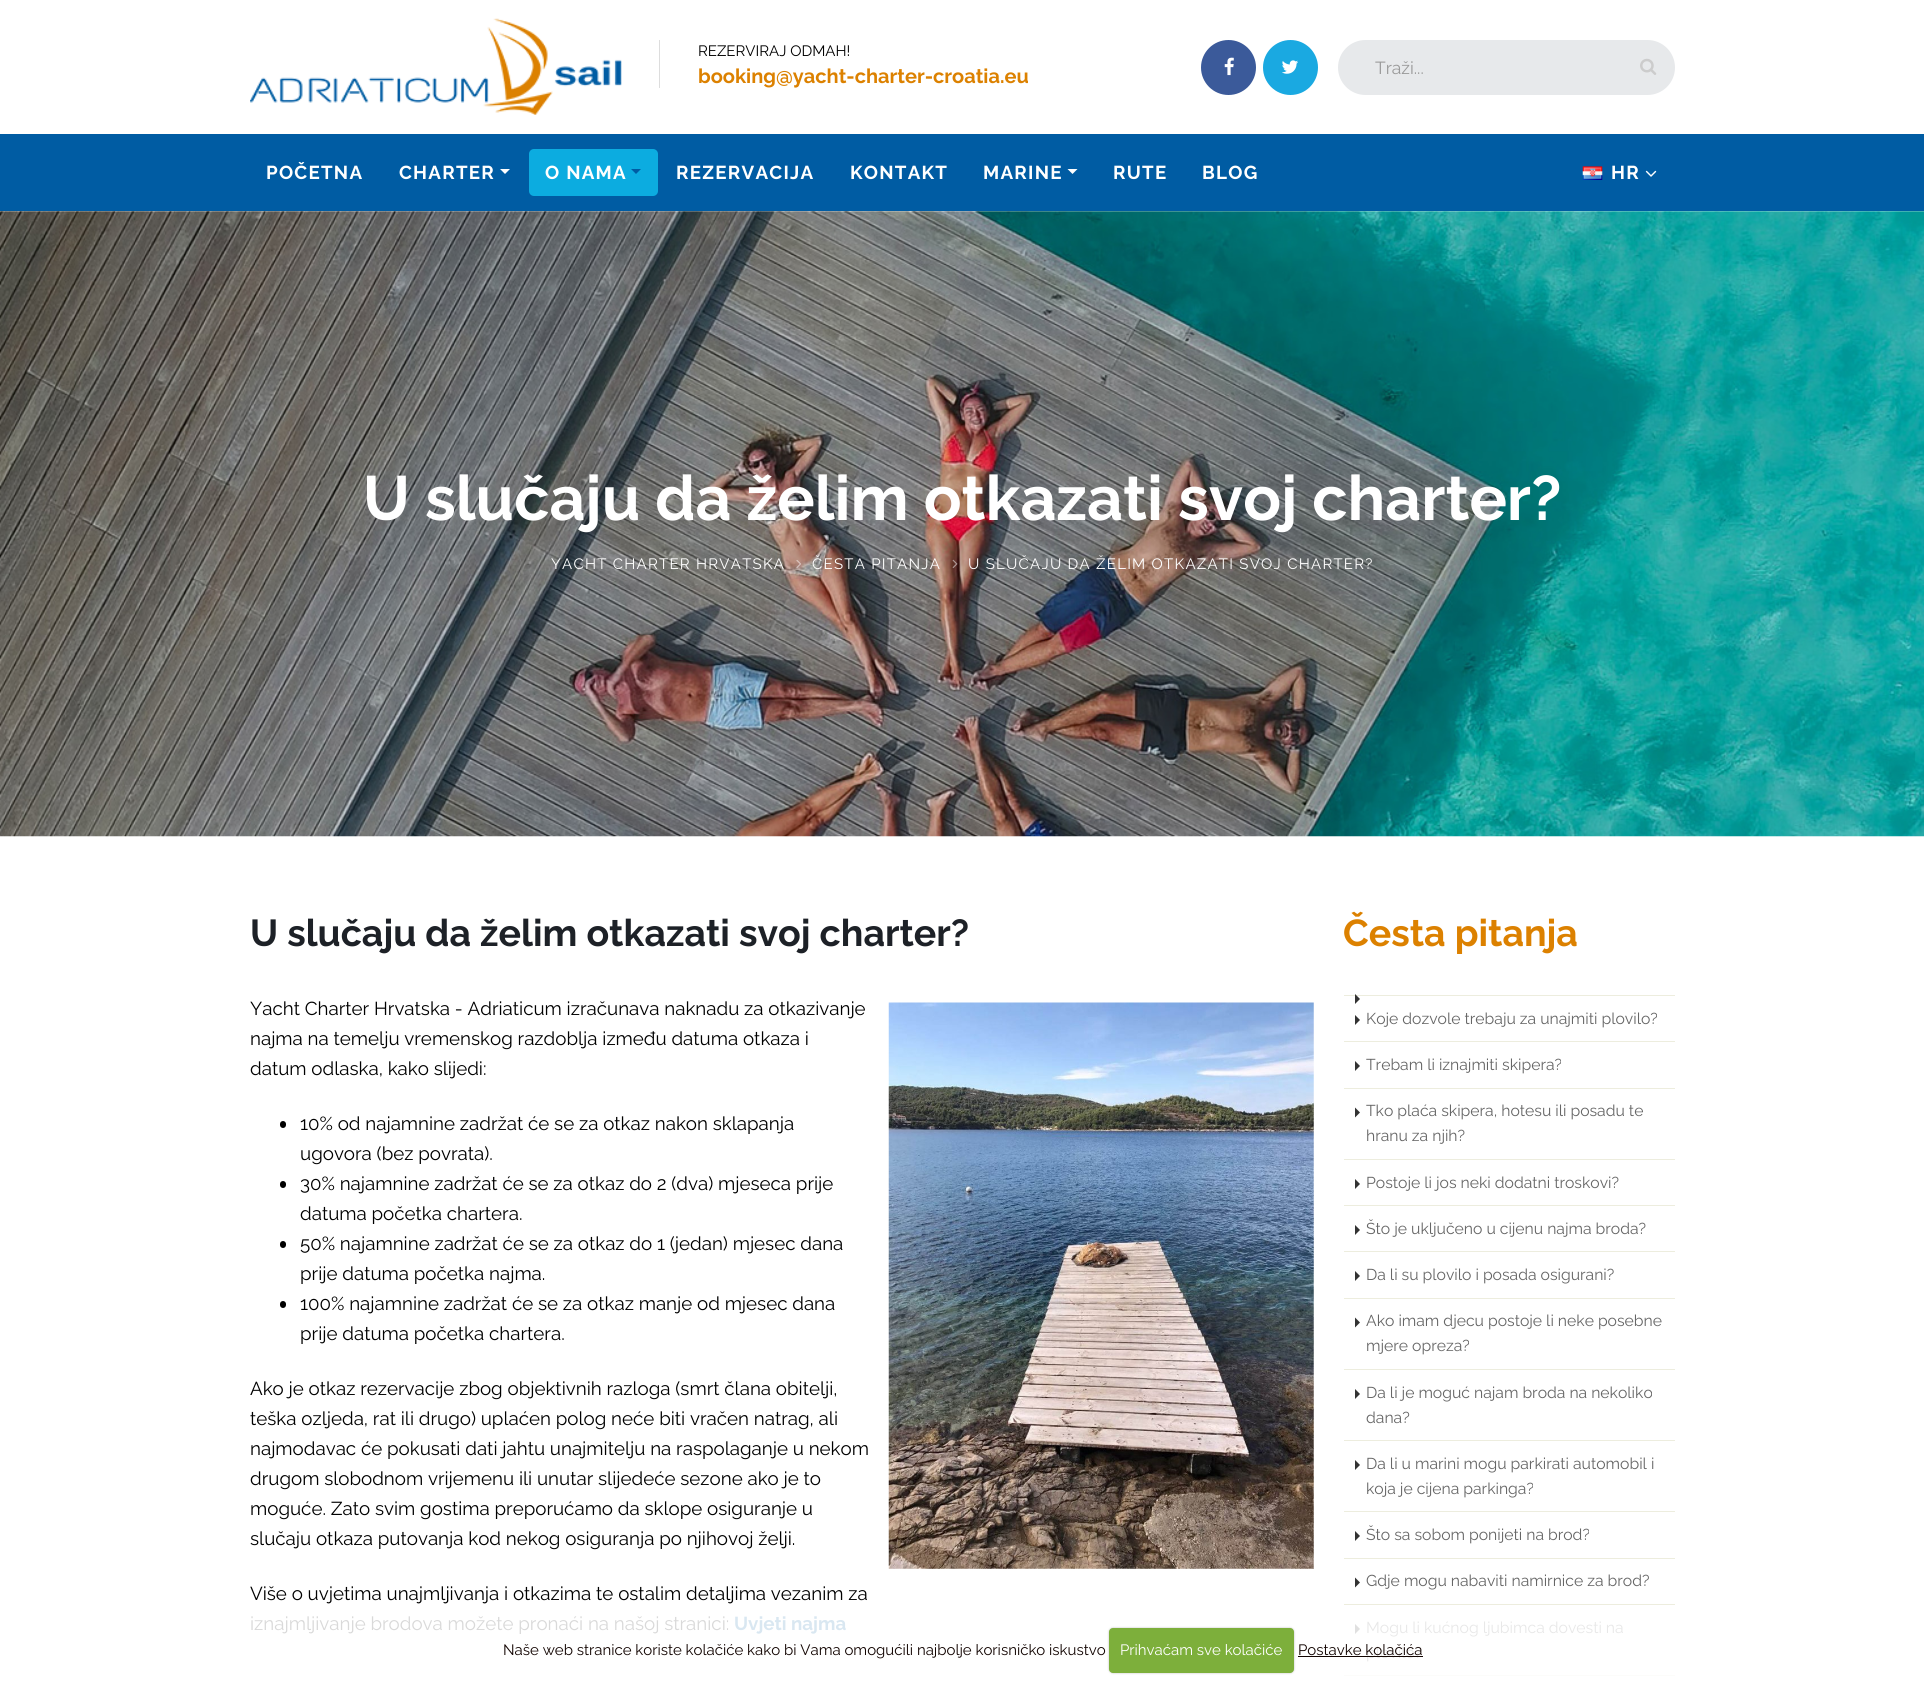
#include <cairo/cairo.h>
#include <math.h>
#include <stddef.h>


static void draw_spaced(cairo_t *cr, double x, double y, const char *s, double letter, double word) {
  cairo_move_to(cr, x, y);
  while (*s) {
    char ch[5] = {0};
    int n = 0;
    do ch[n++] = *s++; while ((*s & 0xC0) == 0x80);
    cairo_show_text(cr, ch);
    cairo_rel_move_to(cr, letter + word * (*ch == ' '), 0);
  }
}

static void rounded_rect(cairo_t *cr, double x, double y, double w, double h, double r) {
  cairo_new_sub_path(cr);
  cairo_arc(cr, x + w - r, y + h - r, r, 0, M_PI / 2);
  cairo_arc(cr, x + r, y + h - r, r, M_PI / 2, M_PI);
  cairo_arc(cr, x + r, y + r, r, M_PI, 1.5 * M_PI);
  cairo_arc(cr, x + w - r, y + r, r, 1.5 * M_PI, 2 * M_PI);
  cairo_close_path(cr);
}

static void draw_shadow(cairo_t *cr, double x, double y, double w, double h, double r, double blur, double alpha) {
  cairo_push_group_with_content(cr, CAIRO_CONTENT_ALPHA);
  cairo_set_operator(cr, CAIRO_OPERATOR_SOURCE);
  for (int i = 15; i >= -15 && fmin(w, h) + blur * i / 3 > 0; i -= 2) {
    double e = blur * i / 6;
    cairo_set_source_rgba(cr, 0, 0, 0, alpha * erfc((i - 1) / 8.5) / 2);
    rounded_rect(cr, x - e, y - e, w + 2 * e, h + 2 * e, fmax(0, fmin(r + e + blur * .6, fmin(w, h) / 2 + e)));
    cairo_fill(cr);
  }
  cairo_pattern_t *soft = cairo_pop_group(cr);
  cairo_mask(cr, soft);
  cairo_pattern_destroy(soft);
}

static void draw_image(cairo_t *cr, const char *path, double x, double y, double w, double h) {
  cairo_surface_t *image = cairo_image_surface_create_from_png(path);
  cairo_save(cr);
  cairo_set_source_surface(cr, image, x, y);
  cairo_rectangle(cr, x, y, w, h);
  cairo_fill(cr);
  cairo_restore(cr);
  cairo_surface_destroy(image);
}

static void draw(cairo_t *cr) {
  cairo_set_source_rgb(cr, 1, 1, 1);
  cairo_paint(cr);
  draw_image(cr, "images/1.png", 250, 18, 372, 97);
  cairo_set_source_rgb(cr, 221 / 255.0, 221 / 255.0, 221 / 255.0);
  cairo_rectangle(cr, 659, 40, 1, 48);
  cairo_fill(cr);
  cairo_set_source_rgb(cr, 59 / 255.0, 90 / 255.0, 154 / 255.0);
  cairo_arc(cr, 1228.5, 67.5, 27.5, 0, 2 * M_PI);
  cairo_fill(cr);
  draw_image(cr, "images/2.png", 1224, 57, 10, 19);
  cairo_set_source_rgb(cr, 26 / 255.0, 169 / 255.0, 225 / 255.0);
  cairo_arc(cr, 1290.5, 67.5, 27.5, 0, 2 * M_PI);
  cairo_fill(cr);
  draw_image(cr, "images/3.png", 1282, 60, 16, 14);
  cairo_set_source_rgb(cr, 231 / 255.0, 233 / 255.0, 235 / 255.0);
  rounded_rect(cr, 1338, 40, 337, 55, 27.5);
  cairo_fill(cr);
  draw_image(cr, "images/4.png", 1640, 58, 17, 17);
  cairo_set_source_rgb(cr, 0, 92 / 255.0, 163 / 255.0);
  cairo_rectangle(cr, 0, 134, 1924, 77);
  cairo_fill(cr);
  cairo_set_source_rgb(cr, 1, 1, 1);
  cairo_new_path(cr);
  cairo_move_to(cr, 500, 169);
  cairo_line_to(cr, 510, 169);
  cairo_line_to(cr, 505, 174);
  cairo_close_path(cr);
  cairo_fill(cr);
  cairo_set_source_rgb(cr, 12 / 255.0, 172 / 255.0, 224 / 255.0);
  rounded_rect(cr, 529, 149, 129, 47, 5);
  cairo_fill(cr);
  cairo_set_source_rgb(cr, 0, 92 / 255.0, 163 / 255.0);
  cairo_new_path(cr);
  cairo_move_to(cr, 631, 169);
  cairo_line_to(cr, 641, 169);
  cairo_line_to(cr, 636, 174);
  cairo_close_path(cr);
  cairo_fill(cr);
  cairo_set_source_rgb(cr, 1, 1, 1);
  cairo_new_path(cr);
  cairo_move_to(cr, 1067.5, 169);
  cairo_line_to(cr, 1077.5, 169);
  cairo_line_to(cr, 1072.5, 174);
  cairo_close_path(cr);
  cairo_fill(cr);
  draw_image(cr, "images/5.png", 1582, 166, 21, 14);
  draw_image(cr, "images/6.png", 1645, 170, 12, 7);
  draw_image(cr, "images/7.png", 0, 211, 1924, 626);
  draw_image(cr, "images/8.png", 796, 560, 6, 8);
  draw_image(cr, "images/9.png", 952, 559, 6, 9);
  cairo_set_source_rgb(cr, 0, 0, 0);
  rounded_rect(cr, 280, 1121, 6, 7, 3);
  cairo_fill(cr);
  rounded_rect(cr, 280, 1181, 6, 7, 3);
  cairo_fill(cr);
  rounded_rect(cr, 280, 1241, 6, 7, 3);
  cairo_fill(cr);
  rounded_rect(cr, 280, 1301, 6, 7, 3);
  cairo_fill(cr);
  draw_image(cr, "images/10.png", 888, 1002, 426, 567);
  cairo_set_source_rgb(cr, 237 / 255.0, 237 / 255.0, 222 / 255.0);
  cairo_rectangle(cr, 1344, 995, 331, 1);
  cairo_fill(cr);
  cairo_set_source_rgb(cr, 51 / 255.0, 51 / 255.0, 51 / 255.0);
  cairo_new_path(cr);
  cairo_move_to(cr, 1355, 1004);
  cairo_line_to(cr, 1355, 994);
  cairo_line_to(cr, 1360, 999);
  cairo_close_path(cr);
  cairo_fill(cr);
  cairo_set_source_rgb(cr, 237 / 255.0, 237 / 255.0, 222 / 255.0);
  cairo_rectangle(cr, 1344, 1041, 331, 1);
  cairo_fill(cr);
  cairo_set_source_rgb(cr, 51 / 255.0, 51 / 255.0, 51 / 255.0);
  cairo_new_path(cr);
  cairo_move_to(cr, 1355, 1025);
  cairo_line_to(cr, 1355, 1015);
  cairo_line_to(cr, 1360, 1020);
  cairo_close_path(cr);
  cairo_fill(cr);
  cairo_set_source_rgb(cr, 237 / 255.0, 237 / 255.0, 222 / 255.0);
  cairo_rectangle(cr, 1344, 1088, 331, 1);
  cairo_fill(cr);
  cairo_set_source_rgb(cr, 51 / 255.0, 51 / 255.0, 51 / 255.0);
  cairo_new_path(cr);
  cairo_move_to(cr, 1355, 1071);
  cairo_line_to(cr, 1355, 1061);
  cairo_line_to(cr, 1360, 1066);
  cairo_close_path(cr);
  cairo_fill(cr);
  cairo_set_source_rgb(cr, 237 / 255.0, 237 / 255.0, 222 / 255.0);
  cairo_rectangle(cr, 1344, 1159, 331, 1);
  cairo_fill(cr);
  cairo_set_source_rgb(cr, 51 / 255.0, 51 / 255.0, 51 / 255.0);
  cairo_new_path(cr);
  cairo_move_to(cr, 1355, 1117.5);
  cairo_line_to(cr, 1355, 1107.5);
  cairo_line_to(cr, 1360, 1112.5);
  cairo_close_path(cr);
  cairo_fill(cr);
  cairo_set_source_rgb(cr, 237 / 255.0, 237 / 255.0, 222 / 255.0);
  cairo_rectangle(cr, 1344, 1205, 331, 1);
  cairo_fill(cr);
  cairo_set_source_rgb(cr, 51 / 255.0, 51 / 255.0, 51 / 255.0);
  cairo_new_path(cr);
  cairo_move_to(cr, 1355, 1189);
  cairo_line_to(cr, 1355, 1179);
  cairo_line_to(cr, 1360, 1184);
  cairo_close_path(cr);
  cairo_fill(cr);
  cairo_set_source_rgb(cr, 237 / 255.0, 237 / 255.0, 222 / 255.0);
  cairo_rectangle(cr, 1344, 1251, 331, 1);
  cairo_fill(cr);
  cairo_set_source_rgb(cr, 51 / 255.0, 51 / 255.0, 51 / 255.0);
  cairo_new_path(cr);
  cairo_move_to(cr, 1355, 1235);
  cairo_line_to(cr, 1355, 1225);
  cairo_line_to(cr, 1360, 1230);
  cairo_close_path(cr);
  cairo_fill(cr);
  cairo_set_source_rgb(cr, 237 / 255.0, 237 / 255.0, 222 / 255.0);
  cairo_rectangle(cr, 1344, 1298, 331, 1);
  cairo_fill(cr);
  cairo_set_source_rgb(cr, 51 / 255.0, 51 / 255.0, 51 / 255.0);
  cairo_new_path(cr);
  cairo_move_to(cr, 1355, 1281);
  cairo_line_to(cr, 1355, 1271);
  cairo_line_to(cr, 1360, 1276);
  cairo_close_path(cr);
  cairo_fill(cr);
  cairo_set_source_rgb(cr, 237 / 255.0, 237 / 255.0, 222 / 255.0);
  cairo_rectangle(cr, 1344, 1369, 331, 1);
  cairo_fill(cr);
  cairo_set_source_rgb(cr, 51 / 255.0, 51 / 255.0, 51 / 255.0);
  cairo_new_path(cr);
  cairo_move_to(cr, 1355, 1327.5);
  cairo_line_to(cr, 1355, 1317.5);
  cairo_line_to(cr, 1360, 1322.5);
  cairo_close_path(cr);
  cairo_fill(cr);
  cairo_set_source_rgb(cr, 237 / 255.0, 237 / 255.0, 222 / 255.0);
  cairo_rectangle(cr, 1344, 1440, 331, 1);
  cairo_fill(cr);
  cairo_set_source_rgb(cr, 51 / 255.0, 51 / 255.0, 51 / 255.0);
  cairo_new_path(cr);
  cairo_move_to(cr, 1355, 1399);
  cairo_line_to(cr, 1355, 1389);
  cairo_line_to(cr, 1360, 1394);
  cairo_close_path(cr);
  cairo_fill(cr);
  cairo_set_source_rgb(cr, 237 / 255.0, 237 / 255.0, 222 / 255.0);
  cairo_rectangle(cr, 1344, 1511, 331, 1);
  cairo_fill(cr);
  cairo_set_source_rgb(cr, 51 / 255.0, 51 / 255.0, 51 / 255.0);
  cairo_new_path(cr);
  cairo_move_to(cr, 1355, 1470);
  cairo_line_to(cr, 1355, 1460);
  cairo_line_to(cr, 1360, 1465);
  cairo_close_path(cr);
  cairo_fill(cr);
  cairo_set_source_rgb(cr, 237 / 255.0, 237 / 255.0, 222 / 255.0);
  cairo_rectangle(cr, 1344, 1558, 331, 1);
  cairo_fill(cr);
  cairo_set_source_rgb(cr, 51 / 255.0, 51 / 255.0, 51 / 255.0);
  cairo_new_path(cr);
  cairo_move_to(cr, 1355, 1541);
  cairo_line_to(cr, 1355, 1531);
  cairo_line_to(cr, 1360, 1536);
  cairo_close_path(cr);
  cairo_fill(cr);
  cairo_set_source_rgb(cr, 237 / 255.0, 237 / 255.0, 222 / 255.0);
  cairo_rectangle(cr, 1344, 1604, 331, 1);
  cairo_fill(cr);
  cairo_set_source_rgb(cr, 51 / 255.0, 51 / 255.0, 51 / 255.0);
  cairo_new_path(cr);
  cairo_move_to(cr, 1355, 1587.5);
  cairo_line_to(cr, 1355, 1577.5);
  cairo_line_to(cr, 1360, 1582.5);
  cairo_close_path(cr);
  cairo_fill(cr);
  cairo_set_source_rgb(cr, 252 / 255.0, 252 / 255.0, 250 / 255.0);
  cairo_rectangle(cr, 1344, 1675, 331, 1);
  cairo_fill(cr);
  cairo_set_source_rgb(cr, 224 / 255.0, 224 / 255.0, 224 / 255.0);
  cairo_new_path(cr);
  cairo_move_to(cr, 1355, 1634);
  cairo_line_to(cr, 1355, 1624);
  cairo_line_to(cr, 1360, 1629);
  cairo_close_path(cr);
  cairo_fill(cr);
  cairo_set_source_rgb(cr, 0, 0, 0);
  draw_shadow(cr, 1109, 1628, 185, 45, 4, 1, 0.25);
  cairo_set_source_rgb(cr, 125 / 255.0, 175 / 255.0, 59 / 255.0);
  rounded_rect(cr, 1109, 1628, 185, 45, 4);
  cairo_fill(cr);
  cairo_select_font_face(cr, "Raleway", CAIRO_FONT_SLANT_NORMAL, CAIRO_FONT_WEIGHT_NORMAL);
  cairo_set_font_size(cr, 15);
  cairo_set_source_rgb(cr, 0, 0, 0);
  cairo_move_to(cr, 698, 56);
  cairo_show_text(cr, "REZERVIRAJ ODMAH!");
  cairo_select_font_face(cr, "Raleway", CAIRO_FONT_SLANT_NORMAL, CAIRO_FONT_WEIGHT_BOLD);
  cairo_set_font_size(cr, 20);
  cairo_set_source_rgb(cr, 220 / 255.0, 129 / 255.0, 0);
  cairo_move_to(cr, 698, 83);
  cairo_show_text(cr, "booking@yacht-charter-croatia.eu");
  cairo_select_font_face(cr, "Raleway", CAIRO_FONT_SLANT_NORMAL, CAIRO_FONT_WEIGHT_NORMAL);
  cairo_set_font_size(cr, 17.5);
  cairo_set_source_rgb(cr, 153 / 255.0, 153 / 255.0, 153 / 255.0);
  cairo_move_to(cr, 1375, 74);
  cairo_show_text(cr, "Traži...");
  cairo_select_font_face(cr, "Raleway", CAIRO_FONT_SLANT_NORMAL, CAIRO_FONT_WEIGHT_BOLD);
  cairo_set_font_size(cr, 18.75);
  cairo_set_source_rgb(cr, 1, 1, 1);
  draw_spaced(cr, 266, 179, "POČETNA", 1.25, 0);
  draw_spaced(cr, 399, 179, "CHARTER", 1.25, 0);
  draw_spaced(cr, 545, 179, "O NAMA", 1.25, 0);
  draw_spaced(cr, 676, 179, "REZERVACIJA", 1.25, 0);
  draw_spaced(cr, 850, 179, "KONTAKT", 1.25, 0);
  draw_spaced(cr, 983, 179, "MARINE", 1.25, 0);
  draw_spaced(cr, 1113, 179, "RUTE", 1.25, 0);
  draw_spaced(cr, 1202, 179, "BLOG", 1.25, 0);
  draw_spaced(cr, 1611, 179, "HR", 1.25, 0);
  cairo_set_font_size(cr, 62.5);
  cairo_move_to(cr, 363, 520);
  cairo_show_text(cr, "U slučaju da želim otkazati svoj charter?");
  cairo_select_font_face(cr, "Raleway", CAIRO_FONT_SLANT_NORMAL, CAIRO_FONT_WEIGHT_NORMAL);
  cairo_set_font_size(cr, 15);
  draw_spaced(cr, 551, 569, "YACHT CHARTER HRVATSKA", 1.25, 0);
  draw_spaced(cr, 812, 569, "ČESTA PITANJA", 1.25, 0);
  draw_spaced(cr, 968, 569, "U SLUČAJU DA ŽELIM OTKAZATI SVOJ CHARTER?", 1.25, 0);
  cairo_select_font_face(cr, "Raleway", CAIRO_FONT_SLANT_NORMAL, CAIRO_FONT_WEIGHT_BOLD);
  cairo_set_font_size(cr, 37.5);
  cairo_set_source_rgb(cr, 29 / 255.0, 33 / 255.0, 39 / 255.0);
  cairo_move_to(cr, 250, 946);
  cairo_show_text(cr, "U slučaju da želim otkazati svoj charter?");
  cairo_select_font_face(cr, "Raleway", CAIRO_FONT_SLANT_NORMAL, CAIRO_FONT_WEIGHT_NORMAL);
  cairo_set_font_size(cr, 18.75);
  cairo_set_source_rgb(cr, 0, 0, 0);
  cairo_move_to(cr, 250, 1015);
  cairo_show_text(cr, "Yacht Charter Hrvatska - Adriaticum izračunava naknadu za otkazivanje");
  cairo_move_to(cr, 250, 1045);
  cairo_show_text(cr, "najma na temelju vremenskog razdoblja između datuma otkaza i");
  cairo_move_to(cr, 250, 1075);
  cairo_show_text(cr, "datum odlaska, kako slijedi:");
  cairo_move_to(cr, 300, 1130);
  cairo_show_text(cr, "10% od najamnine zadržat će se za otkaz nakon sklapanja");
  cairo_move_to(cr, 300, 1160);
  cairo_show_text(cr, "ugovora (bez povrata).");
  cairo_move_to(cr, 300, 1190);
  cairo_show_text(cr, "30% najamnine zadržat će se za otkaz do 2 (dva) mjeseca prije");
  cairo_move_to(cr, 300, 1220);
  cairo_show_text(cr, "datuma početka chartera.");
  cairo_move_to(cr, 300, 1250);
  cairo_show_text(cr, "50% najamnine zadržat će se za otkaz do 1 (jedan) mjesec dana");
  cairo_move_to(cr, 300, 1280);
  cairo_show_text(cr, "prije datuma početka najma.");
  cairo_move_to(cr, 300, 1310);
  cairo_show_text(cr, "100% najamnine zadržat će se za otkaz manje od mjesec dana");
  cairo_move_to(cr, 300, 1340);
  cairo_show_text(cr, "prije datuma početka chartera.");
  cairo_move_to(cr, 250, 1395);
  cairo_show_text(cr, "Ako je otkaz rezervacije zbog objektivnih razloga (smrt člana obitelji,");
  cairo_move_to(cr, 250, 1425);
  cairo_show_text(cr, "teška ozljeda, rat ili drugo) uplaćen polog neće biti vračen natrag, ali");
  cairo_move_to(cr, 250, 1455);
  cairo_show_text(cr, "najmodavac će pokusati dati jahtu unajmitelju na raspolaganje u nekom");
  cairo_move_to(cr, 250, 1485);
  cairo_show_text(cr, "drugom slobodnom vrijemenu ili unutar slijedeće sezone ako je to");
  cairo_move_to(cr, 250, 1515);
  cairo_show_text(cr, "moguće. Zato svim gostima preporućamo da sklope osiguranje u");
  cairo_move_to(cr, 250, 1545);
  cairo_show_text(cr, "slučaju otkaza putovanja kod nekog osiguranja po njihovoj želji.");
  cairo_move_to(cr, 250, 1600);
  cairo_show_text(cr, "Više o uvjetima unajmljivanja i otkazima te ostalim detaljima vezanim za");
  cairo_set_source_rgb(cr, 217 / 255.0, 217 / 255.0, 217 / 255.0);
  cairo_move_to(cr, 250, 1630);
  cairo_show_text(cr, "iznajmljivanje brodova možete pronaći na našoj stranici:");
  cairo_select_font_face(cr, "Raleway", CAIRO_FONT_SLANT_NORMAL, CAIRO_FONT_WEIGHT_BOLD);
  cairo_set_source_rgb(cr, 217 / 255.0, 231 / 255.0, 241 / 255.0);
  cairo_move_to(cr, 734, 1630);
  cairo_show_text(cr, "Uvjeti najma");
  cairo_set_font_size(cr, 37.5);
  cairo_set_source_rgb(cr, 220 / 255.0, 129 / 255.0, 0);
  cairo_move_to(cr, 1343, 946);
  cairo_show_text(cr, "Česta pitanja");
  cairo_select_font_face(cr, "Raleway", CAIRO_FONT_SLANT_NORMAL, CAIRO_FONT_WEIGHT_NORMAL);
  cairo_set_font_size(cr, 15.75);
  cairo_set_source_rgb(cr, 102 / 255.0, 102 / 255.0, 102 / 255.0);
  cairo_move_to(cr, 1366, 1024);
  cairo_show_text(cr, "Koje dozvole trebaju za unajmiti plovilo?");
  cairo_move_to(cr, 1366, 1070);
  cairo_show_text(cr, "Trebam li iznajmiti skipera?");
  cairo_move_to(cr, 1366, 1116);
  cairo_show_text(cr, "Tko plaća skipera, hotesu ili posadu te");
  cairo_move_to(cr, 1366, 1141);
  cairo_show_text(cr, "hranu za njih?");
  cairo_move_to(cr, 1366, 1188);
  cairo_show_text(cr, "Postoje li jos neki dodatni troskovi?");
  cairo_move_to(cr, 1366, 1234);
  cairo_show_text(cr, "Što je uključeno u cijenu najma broda?");
  cairo_move_to(cr, 1366, 1280);
  cairo_show_text(cr, "Da li su plovilo i posada osigurani?");
  cairo_move_to(cr, 1366, 1326);
  cairo_show_text(cr, "Ako imam djecu postoje li neke posebne");
  cairo_move_to(cr, 1366, 1351);
  cairo_show_text(cr, "mjere opreza?");
  cairo_move_to(cr, 1366, 1398);
  cairo_show_text(cr, "Da li je moguć najam broda na nekoliko");
  cairo_move_to(cr, 1366, 1423);
  cairo_show_text(cr, "dana?");
  cairo_move_to(cr, 1366, 1469);
  cairo_show_text(cr, "Da li u marini mogu parkirati automobil i");
  cairo_move_to(cr, 1366, 1494);
  cairo_show_text(cr, "koja je cijena parkinga?");
  cairo_move_to(cr, 1366, 1540);
  cairo_show_text(cr, "Što sa sobom ponijeti na brod?");
  cairo_move_to(cr, 1366, 1586);
  cairo_show_text(cr, "Gdje mogu nabaviti namirnice za brod?");
  cairo_set_source_rgb(cr, 232 / 255.0, 232 / 255.0, 232 / 255.0);
  cairo_move_to(cr, 1366, 1633);
  cairo_show_text(cr, "Mogu li kućnog ljubimca dovesti na");
  cairo_move_to(cr, 1366, 1658);
  cairo_show_text(cr, "plovilo?");
  cairo_set_font_size(cr, 15);
  cairo_set_source_rgb(cr, 17 / 255.0, 3 / 255.0, 0);
  cairo_move_to(cr, 503, 1655);
  cairo_show_text(cr, "Naše web stranice koriste kolačiće kako bi Vama omogućili najbolje korisničko iskustvo");
  cairo_set_source_rgb(cr, 1, 1, 1);
  cairo_move_to(cr, 1120, 1655);
  cairo_show_text(cr, "Prihvaćam sve kolačiće");
  cairo_set_source_rgb(cr, 17 / 255.0, 3 / 255.0, 0);
  cairo_move_to(cr, 1298, 1655);
  cairo_show_text(cr, "Postavke kolačića");
  cairo_rectangle(cr, 1298, 1656, 125, 1);
  cairo_fill(cr);
}

int main(void) {
  cairo_surface_t *surface = cairo_image_surface_create(CAIRO_FORMAT_RGB24, 1924, 1685);
  cairo_t *cr = cairo_create(surface);
  cairo_font_options_t *options = cairo_font_options_create();
  cairo_font_options_set_hint_metrics(options, CAIRO_HINT_METRICS_OFF);
  cairo_font_options_set_hint_style(options, CAIRO_HINT_STYLE_NONE);
  cairo_set_font_options(cr, options);
  cairo_set_miter_limit(cr, 4);
  draw(cr);
  cairo_surface_write_to_png(surface, "out.png");
  cairo_font_options_destroy(options);
  cairo_destroy(cr);
  cairo_surface_destroy(surface);
  return 0;
}
